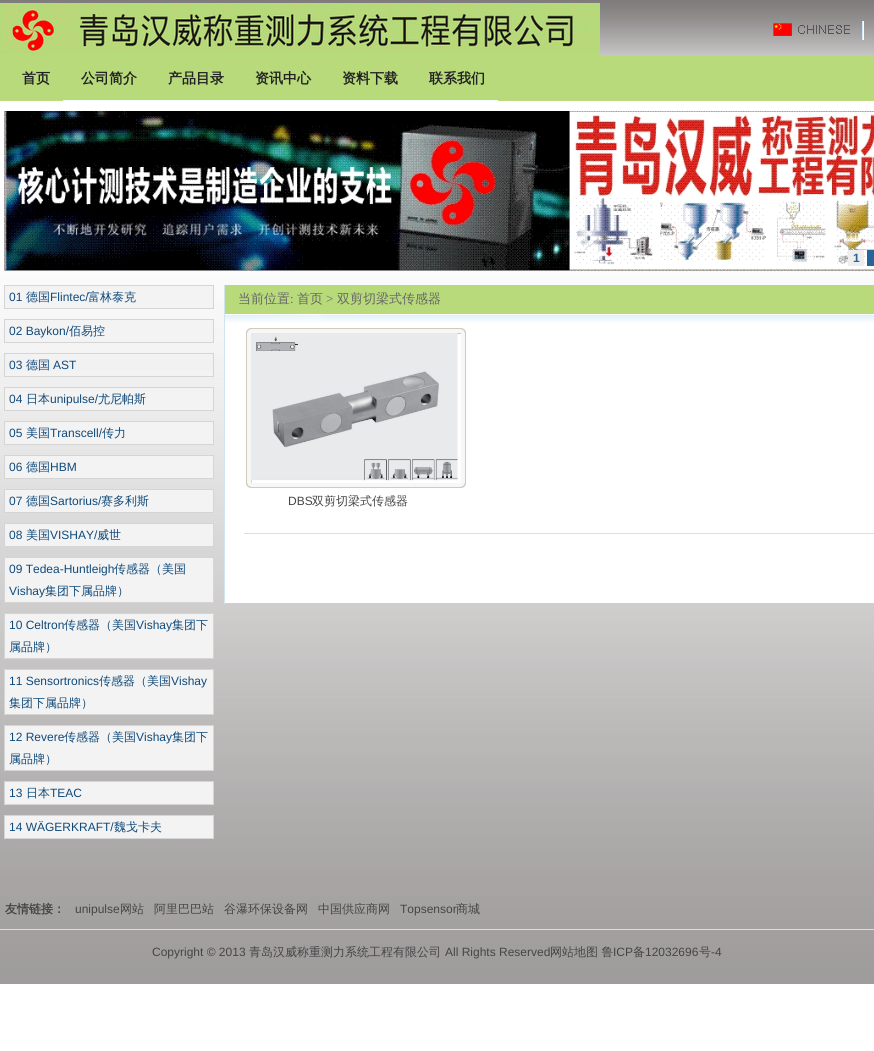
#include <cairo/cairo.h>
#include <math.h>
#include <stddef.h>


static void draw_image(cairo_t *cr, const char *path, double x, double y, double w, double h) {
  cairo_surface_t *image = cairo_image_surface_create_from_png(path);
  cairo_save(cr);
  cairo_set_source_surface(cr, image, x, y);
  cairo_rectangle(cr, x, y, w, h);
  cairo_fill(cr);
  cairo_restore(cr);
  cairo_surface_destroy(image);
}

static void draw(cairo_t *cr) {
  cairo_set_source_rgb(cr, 1, 1, 1);
  cairo_paint(cr);
  draw_image(cr, "images/1.png", 0, 271, 874, 713);
  draw_image(cr, "images/2.png", 0, 0, 874, 55);
  draw_image(cr, "images/3.png", 0, 3, 600, 52);
  draw_image(cr, "images/4.png", 773, 21, 91, 19);
  cairo_set_source_rgb(cr, 184 / 255.0, 218 / 255.0, 123 / 255.0);
  cairo_rectangle(cr, 0, 55, 874, 46);
  cairo_fill(cr);
  cairo_set_source_rgb(cr, 245 / 255.0, 250 / 255.0, 252 / 255.0);
  cairo_rectangle(cr, 63, 100, 435, 1);
  cairo_fill(cr);
  draw_image(cr, "images/5.png", 4, 111, 870, 160);
  cairo_set_source_rgb(cr, 238 / 255.0, 238 / 255.0, 238 / 255.0);
  cairo_rectangle(cr, 848, 250, 16, 16);
  cairo_fill(cr);
  cairo_set_source_rgb(cr, 39 / 255.0, 100 / 255.0, 153 / 255.0);
  cairo_rectangle(cr, 867, 250, 7, 16);
  cairo_fill(cr);
  cairo_set_source_rgb(cr, 243 / 255.0, 243 / 255.0, 243 / 255.0);
  cairo_rectangle(cr, 4.5, 285.5, 209, 23);
  cairo_fill_preserve(cr);
  cairo_set_source_rgb(cr, 213 / 255.0, 213 / 255.0, 213 / 255.0);
  cairo_set_line_width(cr, 1);
  cairo_stroke(cr);
  cairo_set_source_rgb(cr, 243 / 255.0, 243 / 255.0, 243 / 255.0);
  cairo_rectangle(cr, 4.5, 319.5, 209, 23);
  cairo_fill_preserve(cr);
  cairo_set_source_rgb(cr, 213 / 255.0, 213 / 255.0, 213 / 255.0);
  cairo_stroke(cr);
  cairo_set_source_rgb(cr, 243 / 255.0, 243 / 255.0, 243 / 255.0);
  cairo_rectangle(cr, 5, 371, 208, 5);
  cairo_fill(cr);
  cairo_rectangle(cr, 4.5, 353.5, 209, 23);
  cairo_set_source_rgb(cr, 213 / 255.0, 213 / 255.0, 213 / 255.0);
  cairo_stroke(cr);
  cairo_set_source_rgb(cr, 243 / 255.0, 243 / 255.0, 243 / 255.0);
  cairo_rectangle(cr, 4.5, 387.5, 209, 23);
  cairo_fill_preserve(cr);
  cairo_set_source_rgb(cr, 213 / 255.0, 213 / 255.0, 213 / 255.0);
  cairo_stroke(cr);
  cairo_set_source_rgb(cr, 243 / 255.0, 243 / 255.0, 243 / 255.0);
  cairo_rectangle(cr, 4.5, 421.5, 209, 23);
  cairo_fill_preserve(cr);
  cairo_set_source_rgb(cr, 213 / 255.0, 213 / 255.0, 213 / 255.0);
  cairo_stroke(cr);
  cairo_set_source_rgb(cr, 243 / 255.0, 243 / 255.0, 243 / 255.0);
  cairo_rectangle(cr, 4.5, 455.5, 209, 23);
  cairo_fill_preserve(cr);
  cairo_set_source_rgb(cr, 213 / 255.0, 213 / 255.0, 213 / 255.0);
  cairo_stroke(cr);
  cairo_set_source_rgb(cr, 243 / 255.0, 243 / 255.0, 243 / 255.0);
  cairo_rectangle(cr, 4.5, 489.5, 209, 23);
  cairo_fill_preserve(cr);
  cairo_set_source_rgb(cr, 213 / 255.0, 213 / 255.0, 213 / 255.0);
  cairo_stroke(cr);
  cairo_set_source_rgb(cr, 243 / 255.0, 243 / 255.0, 243 / 255.0);
  cairo_rectangle(cr, 4.5, 523.5, 209, 23);
  cairo_fill_preserve(cr);
  cairo_set_source_rgb(cr, 213 / 255.0, 213 / 255.0, 213 / 255.0);
  cairo_stroke(cr);
  cairo_set_source_rgb(cr, 243 / 255.0, 243 / 255.0, 243 / 255.0);
  cairo_rectangle(cr, 4.5, 557.5, 209, 45);
  cairo_fill_preserve(cr);
  cairo_set_source_rgb(cr, 213 / 255.0, 213 / 255.0, 213 / 255.0);
  cairo_stroke(cr);
  cairo_set_source_rgb(cr, 243 / 255.0, 243 / 255.0, 243 / 255.0);
  cairo_rectangle(cr, 4.5, 613.5, 209, 45);
  cairo_fill_preserve(cr);
  cairo_set_source_rgb(cr, 213 / 255.0, 213 / 255.0, 213 / 255.0);
  cairo_stroke(cr);
  cairo_set_source_rgb(cr, 243 / 255.0, 243 / 255.0, 243 / 255.0);
  cairo_rectangle(cr, 4.5, 669.5, 209, 45);
  cairo_fill_preserve(cr);
  cairo_set_source_rgb(cr, 213 / 255.0, 213 / 255.0, 213 / 255.0);
  cairo_stroke(cr);
  cairo_set_source_rgb(cr, 243 / 255.0, 243 / 255.0, 243 / 255.0);
  cairo_rectangle(cr, 4.5, 725.5, 209, 45);
  cairo_fill_preserve(cr);
  cairo_set_source_rgb(cr, 213 / 255.0, 213 / 255.0, 213 / 255.0);
  cairo_stroke(cr);
  cairo_set_source_rgb(cr, 243 / 255.0, 243 / 255.0, 243 / 255.0);
  cairo_rectangle(cr, 4.5, 781.5, 209, 23);
  cairo_fill_preserve(cr);
  cairo_set_source_rgb(cr, 213 / 255.0, 213 / 255.0, 213 / 255.0);
  cairo_stroke(cr);
  cairo_set_source_rgb(cr, 243 / 255.0, 243 / 255.0, 243 / 255.0);
  cairo_rectangle(cr, 4.5, 815.5, 209, 23);
  cairo_fill_preserve(cr);
  cairo_set_source_rgb(cr, 213 / 255.0, 213 / 255.0, 213 / 255.0);
  cairo_stroke(cr);
  draw_image(cr, "images/6.png", 225, 285, 649, 38);
  cairo_set_source_rgb(cr, 1, 1, 1);
  cairo_rectangle(cr, 225, 323, 649, 280);
  cairo_fill(cr);
  cairo_set_source_rgb(cr, 176 / 255.0, 215 / 255.0, 234 / 255.0);
  cairo_rectangle(cr, 224, 603, 650, 1);
  cairo_fill(cr);
  cairo_set_source_rgb(cr, 208 / 255.0, 229 / 255.0, 239 / 255.0);
  cairo_rectangle(cr, 224, 285, 1, 319);
  cairo_fill(cr);
  draw_image(cr, "images/7.png", 246, 328, 220, 160);
  cairo_set_source_rgb(cr, 221 / 255.0, 221 / 255.0, 221 / 255.0);
  cairo_rectangle(cr, 244, 533, 630, 1);
  cairo_fill(cr);
  cairo_rectangle(cr, 0, 929, 874, 1);
  cairo_fill(cr);
  cairo_select_font_face(cr, "WenQuanYi Zen Hei", CAIRO_FONT_SLANT_NORMAL, CAIRO_FONT_WEIGHT_BOLD);
  cairo_set_font_size(cr, 14);
  cairo_set_source_rgb(cr, 34 / 255.0, 34 / 255.0, 34 / 255.0);
  cairo_move_to(cr, 22, 83);
  cairo_show_text(cr, "首页");
  cairo_move_to(cr, 81, 83);
  cairo_show_text(cr, "公司简介");
  cairo_move_to(cr, 168, 83);
  cairo_show_text(cr, "产品目录");
  cairo_move_to(cr, 255, 83);
  cairo_show_text(cr, "资讯中心");
  cairo_move_to(cr, 342, 83);
  cairo_show_text(cr, "资料下载");
  cairo_move_to(cr, 429, 83);
  cairo_show_text(cr, "联系我们");
  cairo_select_font_face(cr, "Liberation Sans", CAIRO_FONT_SLANT_NORMAL, CAIRO_FONT_WEIGHT_BOLD);
  cairo_set_font_size(cr, 12);
  cairo_set_source_rgb(cr, 39 / 255.0, 100 / 255.0, 153 / 255.0);
  cairo_move_to(cr, 853, 262);
  cairo_show_text(cr, "1");
  cairo_select_font_face(cr, "Liberation Sans", CAIRO_FONT_SLANT_NORMAL, CAIRO_FONT_WEIGHT_NORMAL);
  cairo_set_source_rgb(cr, 16 / 255.0, 74 / 255.0, 123 / 255.0);
  cairo_move_to(cr, 9, 301);
  cairo_show_text(cr, "01");
  cairo_select_font_face(cr, "WenQuanYi Zen Hei Medium", CAIRO_FONT_SLANT_NORMAL, CAIRO_FONT_WEIGHT_NORMAL);
  cairo_move_to(cr, 26, 301);
  cairo_show_text(cr, "德国");
  cairo_select_font_face(cr, "Liberation Sans", CAIRO_FONT_SLANT_NORMAL, CAIRO_FONT_WEIGHT_NORMAL);
  cairo_move_to(cr, 50, 301);
  cairo_show_text(cr, "Flintec/");
  cairo_select_font_face(cr, "WenQuanYi Zen Hei Medium", CAIRO_FONT_SLANT_NORMAL, CAIRO_FONT_WEIGHT_NORMAL);
  cairo_move_to(cr, 88, 301);
  cairo_show_text(cr, "富林泰克");
  cairo_select_font_face(cr, "Liberation Sans", CAIRO_FONT_SLANT_NORMAL, CAIRO_FONT_WEIGHT_NORMAL);
  cairo_move_to(cr, 9, 335);
  cairo_show_text(cr, "02 Baykon/");
  cairo_select_font_face(cr, "WenQuanYi Zen Hei Medium", CAIRO_FONT_SLANT_NORMAL, CAIRO_FONT_WEIGHT_NORMAL);
  cairo_move_to(cr, 69, 335);
  cairo_show_text(cr, "佰易控");
  cairo_select_font_face(cr, "Liberation Sans", CAIRO_FONT_SLANT_NORMAL, CAIRO_FONT_WEIGHT_NORMAL);
  cairo_move_to(cr, 9, 369);
  cairo_show_text(cr, "03");
  cairo_select_font_face(cr, "WenQuanYi Zen Hei Medium", CAIRO_FONT_SLANT_NORMAL, CAIRO_FONT_WEIGHT_NORMAL);
  cairo_move_to(cr, 26, 369);
  cairo_show_text(cr, "德国");
  cairo_select_font_face(cr, "Liberation Sans", CAIRO_FONT_SLANT_NORMAL, CAIRO_FONT_WEIGHT_NORMAL);
  cairo_move_to(cr, 53, 369);
  cairo_show_text(cr, "AST");
  cairo_move_to(cr, 9, 403);
  cairo_show_text(cr, "04");
  cairo_select_font_face(cr, "WenQuanYi Zen Hei Medium", CAIRO_FONT_SLANT_NORMAL, CAIRO_FONT_WEIGHT_NORMAL);
  cairo_move_to(cr, 26, 403);
  cairo_show_text(cr, "日本");
  cairo_select_font_face(cr, "Liberation Sans", CAIRO_FONT_SLANT_NORMAL, CAIRO_FONT_WEIGHT_NORMAL);
  cairo_move_to(cr, 50, 403);
  cairo_show_text(cr, "unipulse/");
  cairo_select_font_face(cr, "WenQuanYi Zen Hei Medium", CAIRO_FONT_SLANT_NORMAL, CAIRO_FONT_WEIGHT_NORMAL);
  cairo_move_to(cr, 98, 403);
  cairo_show_text(cr, "尤尼帕斯");
  cairo_select_font_face(cr, "Liberation Sans", CAIRO_FONT_SLANT_NORMAL, CAIRO_FONT_WEIGHT_NORMAL);
  cairo_move_to(cr, 9, 437);
  cairo_show_text(cr, "05");
  cairo_select_font_face(cr, "WenQuanYi Zen Hei Medium", CAIRO_FONT_SLANT_NORMAL, CAIRO_FONT_WEIGHT_NORMAL);
  cairo_move_to(cr, 26, 437);
  cairo_show_text(cr, "美国");
  cairo_select_font_face(cr, "Liberation Sans", CAIRO_FONT_SLANT_NORMAL, CAIRO_FONT_WEIGHT_NORMAL);
  cairo_move_to(cr, 50, 437);
  cairo_show_text(cr, "Transcell/");
  cairo_select_font_face(cr, "WenQuanYi Zen Hei Medium", CAIRO_FONT_SLANT_NORMAL, CAIRO_FONT_WEIGHT_NORMAL);
  cairo_move_to(cr, 102, 437);
  cairo_show_text(cr, "传力");
  cairo_select_font_face(cr, "Liberation Sans", CAIRO_FONT_SLANT_NORMAL, CAIRO_FONT_WEIGHT_NORMAL);
  cairo_move_to(cr, 9, 471);
  cairo_show_text(cr, "06");
  cairo_select_font_face(cr, "WenQuanYi Zen Hei Medium", CAIRO_FONT_SLANT_NORMAL, CAIRO_FONT_WEIGHT_NORMAL);
  cairo_move_to(cr, 26, 471);
  cairo_show_text(cr, "德国");
  cairo_select_font_face(cr, "Liberation Sans", CAIRO_FONT_SLANT_NORMAL, CAIRO_FONT_WEIGHT_NORMAL);
  cairo_move_to(cr, 50, 471);
  cairo_show_text(cr, "HBM");
  cairo_move_to(cr, 9, 505);
  cairo_show_text(cr, "07");
  cairo_select_font_face(cr, "WenQuanYi Zen Hei Medium", CAIRO_FONT_SLANT_NORMAL, CAIRO_FONT_WEIGHT_NORMAL);
  cairo_move_to(cr, 26, 505);
  cairo_show_text(cr, "德国");
  cairo_select_font_face(cr, "Liberation Sans", CAIRO_FONT_SLANT_NORMAL, CAIRO_FONT_WEIGHT_NORMAL);
  cairo_move_to(cr, 50, 505);
  cairo_show_text(cr, "Sartorius/");
  cairo_select_font_face(cr, "WenQuanYi Zen Hei Medium", CAIRO_FONT_SLANT_NORMAL, CAIRO_FONT_WEIGHT_NORMAL);
  cairo_move_to(cr, 101, 505);
  cairo_show_text(cr, "赛多利斯");
  cairo_select_font_face(cr, "Liberation Sans", CAIRO_FONT_SLANT_NORMAL, CAIRO_FONT_WEIGHT_NORMAL);
  cairo_move_to(cr, 9, 539);
  cairo_show_text(cr, "08");
  cairo_select_font_face(cr, "WenQuanYi Zen Hei Medium", CAIRO_FONT_SLANT_NORMAL, CAIRO_FONT_WEIGHT_NORMAL);
  cairo_move_to(cr, 26, 539);
  cairo_show_text(cr, "美国");
  cairo_select_font_face(cr, "Liberation Sans", CAIRO_FONT_SLANT_NORMAL, CAIRO_FONT_WEIGHT_NORMAL);
  cairo_move_to(cr, 50, 539);
  cairo_show_text(cr, "VISHAY/");
  cairo_select_font_face(cr, "WenQuanYi Zen Hei Medium", CAIRO_FONT_SLANT_NORMAL, CAIRO_FONT_WEIGHT_NORMAL);
  cairo_move_to(cr, 97, 539);
  cairo_show_text(cr, "威世");
  cairo_select_font_face(cr, "Liberation Sans", CAIRO_FONT_SLANT_NORMAL, CAIRO_FONT_WEIGHT_NORMAL);
  cairo_move_to(cr, 9, 573);
  cairo_show_text(cr, "09 Tedea-Huntleigh");
  cairo_select_font_face(cr, "WenQuanYi Zen Hei Medium", CAIRO_FONT_SLANT_NORMAL, CAIRO_FONT_WEIGHT_NORMAL);
  cairo_move_to(cr, 114, 573);
  cairo_show_text(cr, "传感器（美国");
  cairo_select_font_face(cr, "Liberation Sans", CAIRO_FONT_SLANT_NORMAL, CAIRO_FONT_WEIGHT_NORMAL);
  cairo_move_to(cr, 9, 595);
  cairo_show_text(cr, "Vishay");
  cairo_select_font_face(cr, "WenQuanYi Zen Hei Medium", CAIRO_FONT_SLANT_NORMAL, CAIRO_FONT_WEIGHT_NORMAL);
  cairo_move_to(cr, 45, 595);
  cairo_show_text(cr, "集团下属品牌）");
  cairo_select_font_face(cr, "Liberation Sans", CAIRO_FONT_SLANT_NORMAL, CAIRO_FONT_WEIGHT_NORMAL);
  cairo_move_to(cr, 9, 629);
  cairo_show_text(cr, "10 Celtron");
  cairo_select_font_face(cr, "WenQuanYi Zen Hei Medium", CAIRO_FONT_SLANT_NORMAL, CAIRO_FONT_WEIGHT_NORMAL);
  cairo_move_to(cr, 64, 629);
  cairo_show_text(cr, "传感器（美国");
  cairo_select_font_face(cr, "Liberation Sans", CAIRO_FONT_SLANT_NORMAL, CAIRO_FONT_WEIGHT_NORMAL);
  cairo_move_to(cr, 136, 629);
  cairo_show_text(cr, "Vishay");
  cairo_select_font_face(cr, "WenQuanYi Zen Hei Medium", CAIRO_FONT_SLANT_NORMAL, CAIRO_FONT_WEIGHT_NORMAL);
  cairo_move_to(cr, 172, 629);
  cairo_show_text(cr, "集团下");
  cairo_move_to(cr, 9, 651);
  cairo_show_text(cr, "属品牌）");
  cairo_select_font_face(cr, "Liberation Sans", CAIRO_FONT_SLANT_NORMAL, CAIRO_FONT_WEIGHT_NORMAL);
  cairo_move_to(cr, 9, 685);
  cairo_show_text(cr, "11 Sensortronics");
  cairo_select_font_face(cr, "WenQuanYi Zen Hei Medium", CAIRO_FONT_SLANT_NORMAL, CAIRO_FONT_WEIGHT_NORMAL);
  cairo_move_to(cr, 99, 685);
  cairo_show_text(cr, "传感器（美国");
  cairo_select_font_face(cr, "Liberation Sans", CAIRO_FONT_SLANT_NORMAL, CAIRO_FONT_WEIGHT_NORMAL);
  cairo_move_to(cr, 171, 685);
  cairo_show_text(cr, "Vishay");
  cairo_select_font_face(cr, "WenQuanYi Zen Hei Medium", CAIRO_FONT_SLANT_NORMAL, CAIRO_FONT_WEIGHT_NORMAL);
  cairo_move_to(cr, 9, 707);
  cairo_show_text(cr, "集团下属品牌）");
  cairo_select_font_face(cr, "Liberation Sans", CAIRO_FONT_SLANT_NORMAL, CAIRO_FONT_WEIGHT_NORMAL);
  cairo_move_to(cr, 9, 741);
  cairo_show_text(cr, "12 Revere");
  cairo_select_font_face(cr, "WenQuanYi Zen Hei Medium", CAIRO_FONT_SLANT_NORMAL, CAIRO_FONT_WEIGHT_NORMAL);
  cairo_move_to(cr, 64, 741);
  cairo_show_text(cr, "传感器（美国");
  cairo_select_font_face(cr, "Liberation Sans", CAIRO_FONT_SLANT_NORMAL, CAIRO_FONT_WEIGHT_NORMAL);
  cairo_move_to(cr, 136, 741);
  cairo_show_text(cr, "Vishay");
  cairo_select_font_face(cr, "WenQuanYi Zen Hei Medium", CAIRO_FONT_SLANT_NORMAL, CAIRO_FONT_WEIGHT_NORMAL);
  cairo_move_to(cr, 172, 741);
  cairo_show_text(cr, "集团下");
  cairo_move_to(cr, 9, 763);
  cairo_show_text(cr, "属品牌）");
  cairo_select_font_face(cr, "Liberation Sans", CAIRO_FONT_SLANT_NORMAL, CAIRO_FONT_WEIGHT_NORMAL);
  cairo_move_to(cr, 9, 797);
  cairo_show_text(cr, "13");
  cairo_select_font_face(cr, "WenQuanYi Zen Hei Medium", CAIRO_FONT_SLANT_NORMAL, CAIRO_FONT_WEIGHT_NORMAL);
  cairo_move_to(cr, 26, 797);
  cairo_show_text(cr, "日本");
  cairo_select_font_face(cr, "Liberation Sans", CAIRO_FONT_SLANT_NORMAL, CAIRO_FONT_WEIGHT_NORMAL);
  cairo_move_to(cr, 50, 797);
  cairo_show_text(cr, "TEAC");
  cairo_move_to(cr, 9, 831);
  cairo_show_text(cr, "14 WÄGERKRAFT/");
  cairo_select_font_face(cr, "WenQuanYi Zen Hei Medium", CAIRO_FONT_SLANT_NORMAL, CAIRO_FONT_WEIGHT_NORMAL);
  cairo_move_to(cr, 114, 831);
  cairo_show_text(cr, "魏戈卡夫");
  cairo_set_font_size(cr, 13);
  cairo_set_source_rgb(cr, 102 / 255.0, 102 / 255.0, 102 / 255.0);
  cairo_move_to(cr, 238, 303);
  cairo_show_text(cr, "当前位置");
  cairo_select_font_face(cr, "Liberation Serif", CAIRO_FONT_SLANT_NORMAL, CAIRO_FONT_WEIGHT_NORMAL);
  cairo_move_to(cr, 290, 303);
  cairo_show_text(cr, ":");
  cairo_select_font_face(cr, "WenQuanYi Zen Hei Medium", CAIRO_FONT_SLANT_NORMAL, CAIRO_FONT_WEIGHT_NORMAL);
  cairo_move_to(cr, 297, 303);
  cairo_show_text(cr, "首页");
  cairo_select_font_face(cr, "Liberation Serif", CAIRO_FONT_SLANT_NORMAL, CAIRO_FONT_WEIGHT_NORMAL);
  cairo_move_to(cr, 326, 303);
  cairo_show_text(cr, ">");
  cairo_select_font_face(cr, "WenQuanYi Zen Hei Medium", CAIRO_FONT_SLANT_NORMAL, CAIRO_FONT_WEIGHT_NORMAL);
  cairo_move_to(cr, 337, 303);
  cairo_show_text(cr, "双剪切梁式传感器");
  cairo_select_font_face(cr, "Liberation Sans", CAIRO_FONT_SLANT_NORMAL, CAIRO_FONT_WEIGHT_NORMAL);
  cairo_set_font_size(cr, 12);
  cairo_set_source_rgb(cr, 69 / 255.0, 69 / 255.0, 69 / 255.0);
  cairo_move_to(cr, 288, 505);
  cairo_show_text(cr, "DBS");
  cairo_select_font_face(cr, "WenQuanYi Zen Hei Medium", CAIRO_FONT_SLANT_NORMAL, CAIRO_FONT_WEIGHT_NORMAL);
  cairo_move_to(cr, 312, 505);
  cairo_show_text(cr, "双剪切梁式传感器");
  cairo_select_font_face(cr, "WenQuanYi Zen Hei", CAIRO_FONT_SLANT_NORMAL, CAIRO_FONT_WEIGHT_BOLD);
  cairo_move_to(cr, 5, 913);
  cairo_show_text(cr, "友情链接：");
  cairo_select_font_face(cr, "Liberation Sans", CAIRO_FONT_SLANT_NORMAL, CAIRO_FONT_WEIGHT_NORMAL);
  cairo_move_to(cr, 75, 913);
  cairo_show_text(cr, "unipulse");
  cairo_select_font_face(cr, "WenQuanYi Zen Hei Medium", CAIRO_FONT_SLANT_NORMAL, CAIRO_FONT_WEIGHT_NORMAL);
  cairo_move_to(cr, 120, 913);
  cairo_show_text(cr, "网站");
  cairo_move_to(cr, 154, 913);
  cairo_show_text(cr, "阿里巴巴站");
  cairo_move_to(cr, 224, 913);
  cairo_show_text(cr, "谷瀑环保设备网");
  cairo_move_to(cr, 318, 913);
  cairo_show_text(cr, "中国供应商网");
  cairo_select_font_face(cr, "Liberation Sans", CAIRO_FONT_SLANT_NORMAL, CAIRO_FONT_WEIGHT_NORMAL);
  cairo_move_to(cr, 400, 913);
  cairo_show_text(cr, "Topsensor");
  cairo_select_font_face(cr, "WenQuanYi Zen Hei Medium", CAIRO_FONT_SLANT_NORMAL, CAIRO_FONT_WEIGHT_NORMAL);
  cairo_move_to(cr, 456, 913);
  cairo_show_text(cr, "商城");
  cairo_select_font_face(cr, "Liberation Sans", CAIRO_FONT_SLANT_NORMAL, CAIRO_FONT_WEIGHT_NORMAL);
  cairo_move_to(cr, 152, 956);
  cairo_show_text(cr, "Copyright © 2013");
  cairo_select_font_face(cr, "WenQuanYi Zen Hei Medium", CAIRO_FONT_SLANT_NORMAL, CAIRO_FONT_WEIGHT_NORMAL);
  cairo_move_to(cr, 249, 956);
  cairo_show_text(cr, "青岛汉威称重测力系统工程有限公司");
  cairo_select_font_face(cr, "Liberation Sans", CAIRO_FONT_SLANT_NORMAL, CAIRO_FONT_WEIGHT_NORMAL);
  cairo_move_to(cr, 445, 956);
  cairo_show_text(cr, "All Rights Reserved");
  cairo_select_font_face(cr, "WenQuanYi Zen Hei Medium", CAIRO_FONT_SLANT_NORMAL, CAIRO_FONT_WEIGHT_NORMAL);
  cairo_move_to(cr, 550, 956);
  cairo_show_text(cr, "网站地图 鲁");
  cairo_select_font_face(cr, "Liberation Sans", CAIRO_FONT_SLANT_NORMAL, CAIRO_FONT_WEIGHT_NORMAL);
  cairo_move_to(cr, 613, 956);
  cairo_show_text(cr, "ICP");
  cairo_select_font_face(cr, "WenQuanYi Zen Hei Medium", CAIRO_FONT_SLANT_NORMAL, CAIRO_FONT_WEIGHT_NORMAL);
  cairo_move_to(cr, 633, 956);
  cairo_show_text(cr, "备");
  cairo_select_font_face(cr, "Liberation Sans", CAIRO_FONT_SLANT_NORMAL, CAIRO_FONT_WEIGHT_NORMAL);
  cairo_move_to(cr, 645, 956);
  cairo_show_text(cr, "12032696");
  cairo_select_font_face(cr, "WenQuanYi Zen Hei Medium", CAIRO_FONT_SLANT_NORMAL, CAIRO_FONT_WEIGHT_NORMAL);
  cairo_move_to(cr, 699, 956);
  cairo_show_text(cr, "号");
  cairo_select_font_face(cr, "Liberation Sans", CAIRO_FONT_SLANT_NORMAL, CAIRO_FONT_WEIGHT_NORMAL);
  cairo_move_to(cr, 711, 956);
  cairo_show_text(cr, "-4");
}

int main(void) {
  cairo_surface_t *surface = cairo_image_surface_create(CAIRO_FORMAT_RGB24, 874, 1051);
  cairo_t *cr = cairo_create(surface);
  cairo_font_options_t *options = cairo_font_options_create();
  cairo_font_options_set_hint_metrics(options, CAIRO_HINT_METRICS_OFF);
  cairo_font_options_set_hint_style(options, CAIRO_HINT_STYLE_NONE);
  cairo_set_font_options(cr, options);
  cairo_set_miter_limit(cr, 4);
  draw(cr);
  cairo_surface_write_to_png(surface, "out.png");
  cairo_font_options_destroy(options);
  cairo_destroy(cr);
  cairo_surface_destroy(surface);
  return 0;
}
